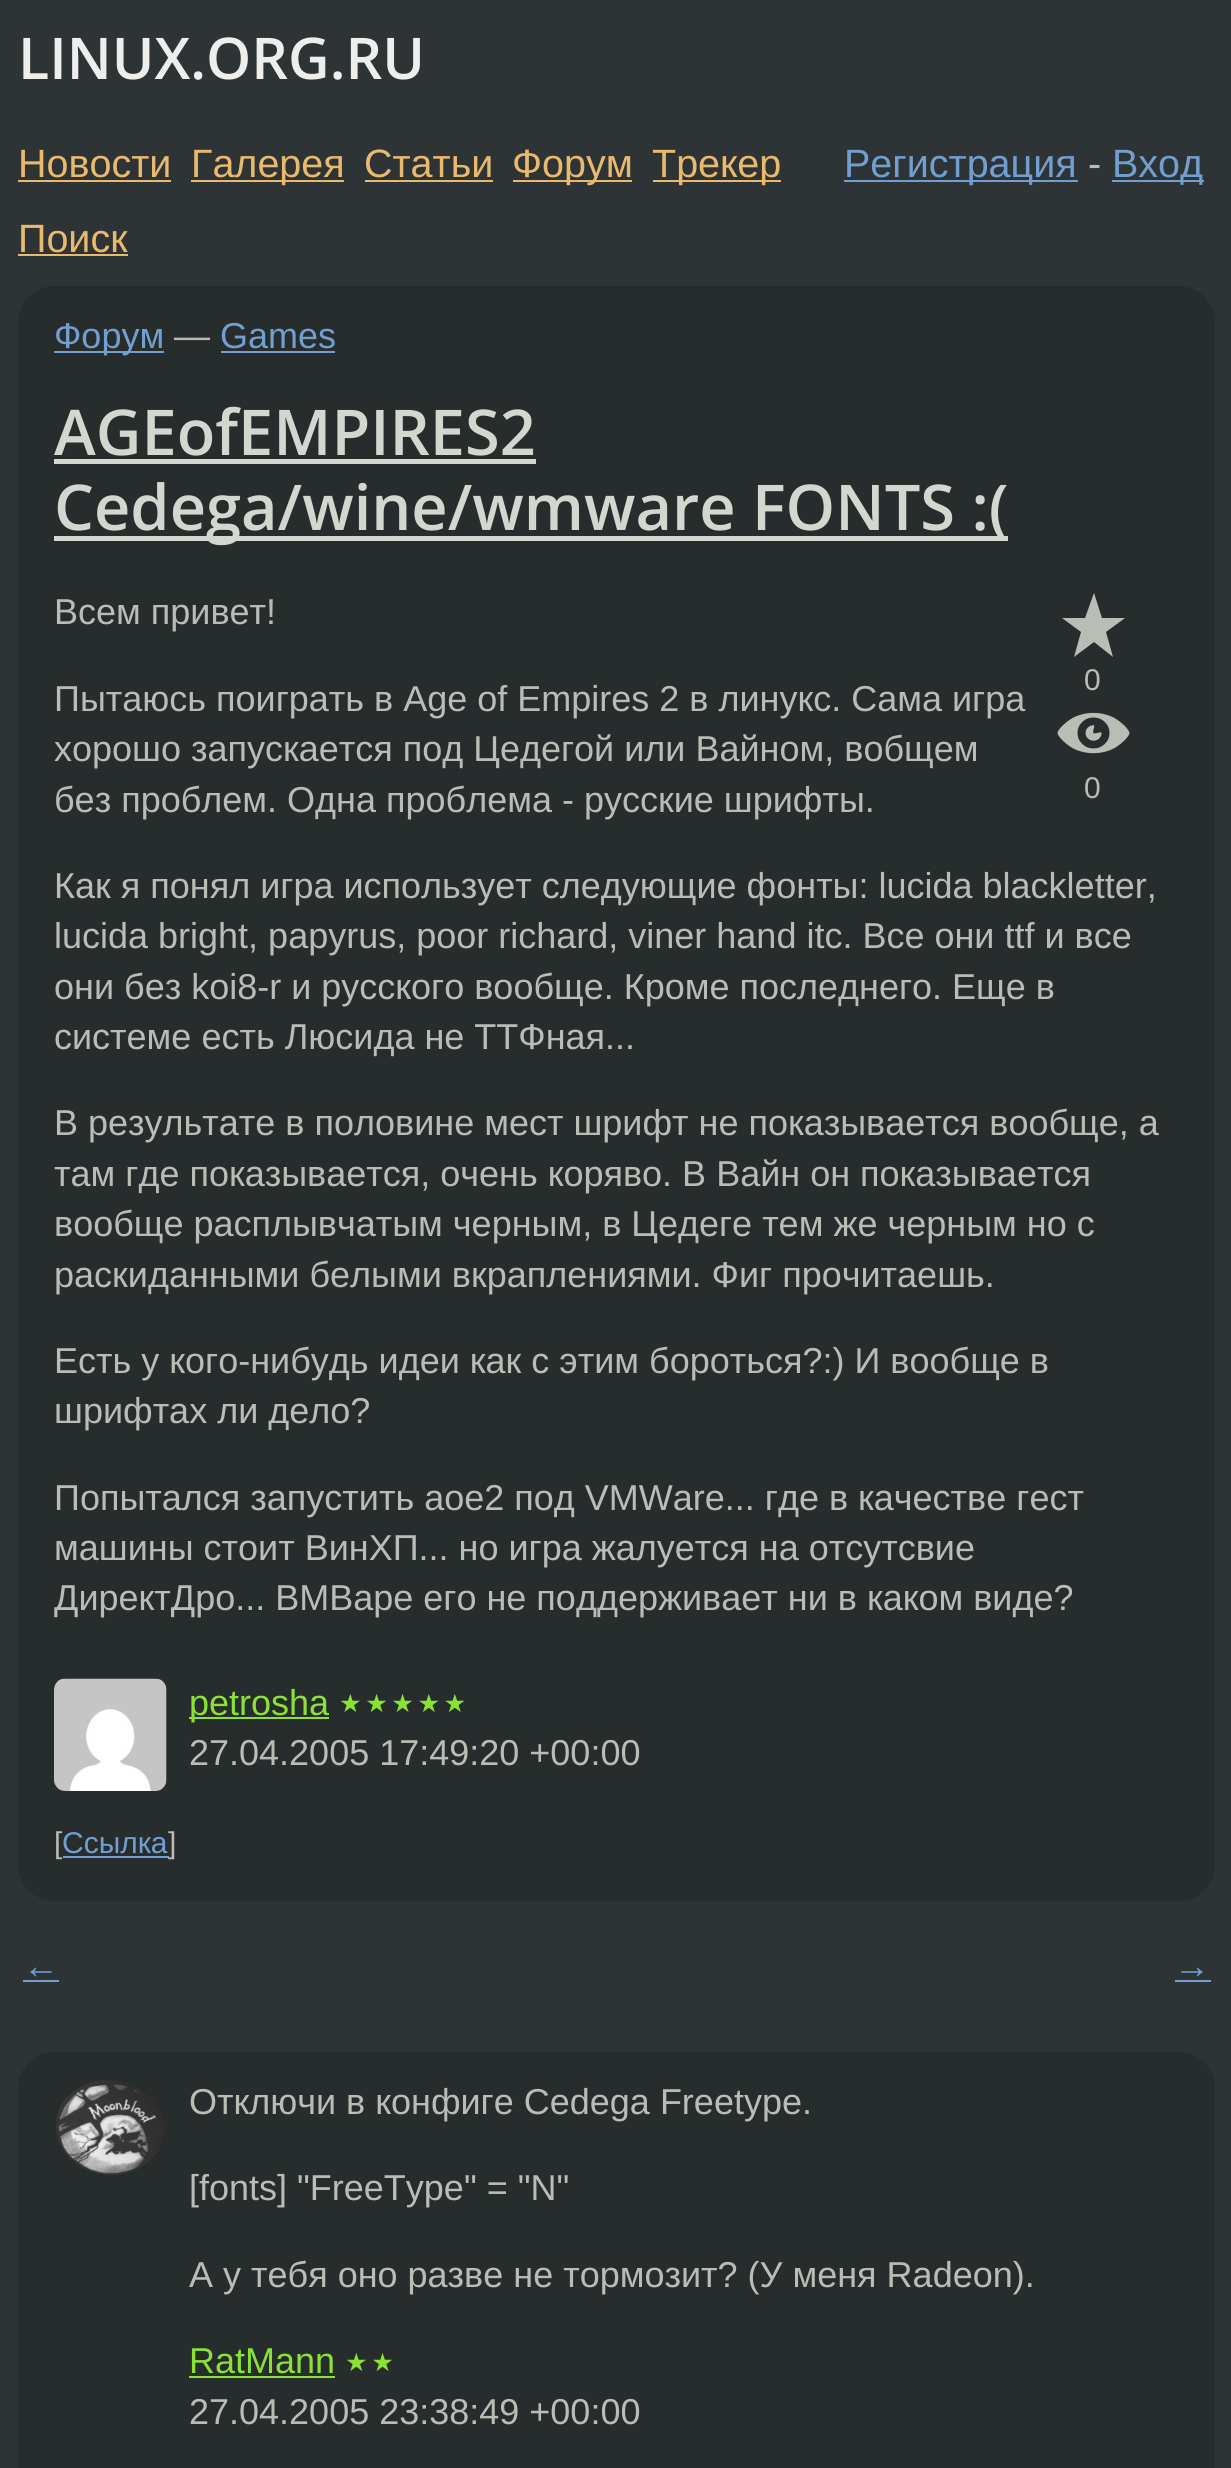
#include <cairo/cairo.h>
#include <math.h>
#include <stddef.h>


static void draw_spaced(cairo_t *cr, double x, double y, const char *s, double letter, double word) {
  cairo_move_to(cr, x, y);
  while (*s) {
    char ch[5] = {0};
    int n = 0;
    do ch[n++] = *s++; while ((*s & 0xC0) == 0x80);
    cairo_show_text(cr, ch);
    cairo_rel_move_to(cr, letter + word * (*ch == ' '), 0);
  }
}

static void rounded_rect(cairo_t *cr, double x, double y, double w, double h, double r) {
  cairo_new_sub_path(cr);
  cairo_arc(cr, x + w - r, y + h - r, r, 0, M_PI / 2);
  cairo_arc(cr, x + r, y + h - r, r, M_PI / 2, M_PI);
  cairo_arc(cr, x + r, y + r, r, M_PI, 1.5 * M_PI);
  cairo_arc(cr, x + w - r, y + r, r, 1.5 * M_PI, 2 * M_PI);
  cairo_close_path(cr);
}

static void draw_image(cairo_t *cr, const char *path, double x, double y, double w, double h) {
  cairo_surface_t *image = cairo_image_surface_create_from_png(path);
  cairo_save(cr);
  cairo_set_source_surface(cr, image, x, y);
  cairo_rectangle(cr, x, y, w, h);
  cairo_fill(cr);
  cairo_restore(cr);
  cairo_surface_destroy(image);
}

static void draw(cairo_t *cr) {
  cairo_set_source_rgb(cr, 46 / 255.0, 52 / 255.0, 54 / 255.0);
  cairo_paint(cr);
  cairo_set_source_rgb(cr, 233 / 255.0, 185 / 255.0, 110 / 255.0);
  cairo_rectangle(cr, 18, 180, 153, 2);
  cairo_fill(cr);
  cairo_rectangle(cr, 191, 180, 153, 2);
  cairo_fill(cr);
  cairo_rectangle(cr, 365, 180, 128, 2);
  cairo_fill(cr);
  cairo_rectangle(cr, 513, 180, 119, 2);
  cairo_fill(cr);
  cairo_rectangle(cr, 653, 180, 128, 2);
  cairo_fill(cr);
  cairo_rectangle(cr, 18, 254, 110, 2);
  cairo_fill(cr);
  cairo_set_source_rgb(cr, 114 / 255.0, 159 / 255.0, 207 / 255.0);
  cairo_rectangle(cr, 844, 180, 234, 2);
  cairo_fill(cr);
  cairo_rectangle(cr, 1112, 180, 92, 2);
  cairo_fill(cr);
  cairo_set_source_rgb(cr, 39 / 255.0, 44 / 255.0, 45 / 255.0);
  rounded_rect(cr, 18, 286, 1197, 1615, 36);
  cairo_fill(cr);
  cairo_set_source_rgb(cr, 114 / 255.0, 159 / 255.0, 207 / 255.0);
  cairo_rectangle(cr, 54, 351, 110, 2);
  cairo_fill(cr);
  cairo_rectangle(cr, 221, 351, 114, 2);
  cairo_fill(cr);
  cairo_set_source_rgb(cr, 211 / 255.0, 215 / 255.0, 207 / 255.0);
  cairo_rectangle(cr, 54, 459, 482, 5);
  cairo_fill(cr);
  cairo_rectangle(cr, 54, 536, 954, 5);
  cairo_fill(cr);
  cairo_set_source_rgb(cr, 186 / 255.0, 189 / 255.0, 182 / 255.0);
  cairo_new_path(cr);
  cairo_move_to(cr, 1094, 593);
  cairo_line_to(cr, 1102, 618);
  cairo_line_to(cr, 1125, 618);
  cairo_line_to(cr, 1106, 632);
  cairo_line_to(cr, 1113, 657);
  cairo_line_to(cr, 1094, 642);
  cairo_line_to(cr, 1074, 657);
  cairo_line_to(cr, 1081, 632);
  cairo_line_to(cr, 1062, 618);
  cairo_line_to(cr, 1085, 618);
  cairo_close_path(cr);
  cairo_fill(cr);
  draw_image(cr, "images/1.png", 1057, 712, 73, 42);
  draw_image(cr, "images/2.png", 54, 1678, 113, 113);
  cairo_set_source_rgb(cr, 138 / 255.0, 226 / 255.0, 52 / 255.0);
  cairo_rectangle(cr, 189, 1717, 140, 2);
  cairo_fill(cr);
  cairo_set_source_rgb(cr, 114 / 255.0, 159 / 255.0, 207 / 255.0);
  cairo_rectangle(cr, 63, 1856, 106, 2);
  cairo_fill(cr);
  cairo_rectangle(cr, 23, 1980, 36, 2);
  cairo_fill(cr);
  cairo_rectangle(cr, 1175, 1980, 36, 2);
  cairo_fill(cr);
  cairo_set_source_rgb(cr, 39 / 255.0, 44 / 255.0, 45 / 255.0);
  rounded_rect(cr, 18, 2052, 1197, 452, 36);
  cairo_fill(cr);
  draw_image(cr, "images/3.png", 56, 2080, 109, 95);
  cairo_set_source_rgb(cr, 138 / 255.0, 226 / 255.0, 52 / 255.0);
  cairo_rectangle(cr, 189, 2376, 146, 2);
  cairo_fill(cr);
  cairo_select_font_face(cr, "Open Sans SemiBold", CAIRO_FONT_SLANT_NORMAL, CAIRO_FONT_WEIGHT_NORMAL);
  cairo_set_font_size(cr, 57.5);
  cairo_set_source_rgb(cr, 238 / 255.0, 238 / 255.0, 236 / 255.0);
  cairo_move_to(cr, 18, 79);
  cairo_show_text(cr, "LINUX.ORG.RU");
  cairo_select_font_face(cr, "Liberation Sans", CAIRO_FONT_SLANT_NORMAL, CAIRO_FONT_WEIGHT_NORMAL);
  cairo_set_font_size(cr, 39.5);
  cairo_set_source_rgb(cr, 233 / 255.0, 185 / 255.0, 110 / 255.0);
  cairo_move_to(cr, 18, 177);
  cairo_show_text(cr, "Новости");
  cairo_move_to(cr, 191, 177);
  cairo_show_text(cr, "Галерея");
  cairo_move_to(cr, 364, 177);
  cairo_show_text(cr, "Статьи");
  cairo_move_to(cr, 512, 177);
  cairo_show_text(cr, "Форум");
  cairo_move_to(cr, 652, 177);
  cairo_show_text(cr, "Трекер");
  cairo_move_to(cr, 18, 252);
  cairo_show_text(cr, "Поиск");
  cairo_set_source_rgb(cr, 114 / 255.0, 159 / 255.0, 207 / 255.0);
  cairo_move_to(cr, 844, 177);
  cairo_show_text(cr, "Регистрация");
  cairo_set_source_rgb(cr, 186 / 255.0, 189 / 255.0, 182 / 255.0);
  cairo_move_to(cr, 1088, 177);
  cairo_show_text(cr, "-");
  cairo_set_source_rgb(cr, 114 / 255.0, 159 / 255.0, 207 / 255.0);
  cairo_move_to(cr, 1112, 177);
  cairo_show_text(cr, "Вход");
  cairo_set_font_size(cr, 36);
  cairo_move_to(cr, 54, 348);
  cairo_show_text(cr, "Форум");
  cairo_set_source_rgb(cr, 186 / 255.0, 189 / 255.0, 182 / 255.0);
  cairo_move_to(cr, 174, 348);
  cairo_show_text(cr, "—");
  cairo_set_source_rgb(cr, 114 / 255.0, 159 / 255.0, 207 / 255.0);
  cairo_move_to(cr, 220, 348);
  cairo_show_text(cr, "Games");
  cairo_select_font_face(cr, "Open Sans SemiBold", CAIRO_FONT_SLANT_NORMAL, CAIRO_FONT_WEIGHT_NORMAL);
  cairo_set_font_size(cr, 63.1);
  cairo_set_source_rgb(cr, 211 / 255.0, 215 / 255.0, 207 / 255.0);
  cairo_move_to(cr, 54, 455);
  cairo_show_text(cr, "AGEofEMPIRES2");
  cairo_move_to(cr, 54, 530);
  cairo_show_text(cr, "Cedega/wine/wmware FONTS :(");
  cairo_select_font_face(cr, "Liberation Sans", CAIRO_FONT_SLANT_NORMAL, CAIRO_FONT_WEIGHT_NORMAL);
  cairo_set_font_size(cr, 36);
  cairo_set_source_rgb(cr, 186 / 255.0, 189 / 255.0, 182 / 255.0);
  cairo_move_to(cr, 54, 624);
  cairo_show_text(cr, "Всем привет!");
  cairo_move_to(cr, 54, 711);
  cairo_show_text(cr, "Пытаюсь поиграть в Age of Empires 2 в линукс. Сама игра");
  cairo_move_to(cr, 54, 761);
  cairo_show_text(cr, "хорошо запускается под Цедегой или Вайном, вобщем");
  cairo_move_to(cr, 54, 812);
  cairo_show_text(cr, "без проблем. Одна проблема - русские шрифты.");
  cairo_move_to(cr, 54, 898);
  cairo_show_text(cr, "Как я понял игра использует следующие фонты: lucida blackletter,");
  cairo_move_to(cr, 54, 948);
  cairo_show_text(cr, "lucida bright, papyrus, poor richard, viner hand itc. Все они ttf и все");
  cairo_move_to(cr, 54, 999);
  cairo_show_text(cr, "они без koi8-r и русского вообще. Кроме последнего. Еще в");
  cairo_move_to(cr, 54, 1049);
  cairo_show_text(cr, "системе есть Люсида не ТТФная...");
  cairo_move_to(cr, 54, 1135);
  cairo_show_text(cr, "В результате в половине мест шрифт не показывается вообще, а");
  cairo_move_to(cr, 54, 1186);
  cairo_show_text(cr, "там где показывается, очень коряво. В Вайн он показывается");
  cairo_move_to(cr, 54, 1236);
  cairo_show_text(cr, "вообще расплывчатым черным, в Цедеге тем же черным но с");
  cairo_move_to(cr, 54, 1287);
  cairo_show_text(cr, "раскиданными белыми вкраплениями. Фиг прочитаешь.");
  cairo_move_to(cr, 54, 1373);
  cairo_show_text(cr, "Есть у кого-нибудь идеи как с этим бороться?:) И вообще в");
  cairo_move_to(cr, 54, 1423);
  cairo_show_text(cr, "шрифтах ли дело?");
  cairo_move_to(cr, 54, 1510);
  cairo_show_text(cr, "Попытался запустить aoe2 под VMWare... где в качестве гест");
  cairo_move_to(cr, 54, 1560);
  cairo_show_text(cr, "машины стоит ВинХП... но игра жалуется на отсутсвие");
  cairo_move_to(cr, 54, 1610);
  cairo_show_text(cr, "ДиректДро... ВМВаре его не поддерживает ни в каком виде?");
  cairo_set_font_size(cr, 30);
  cairo_move_to(cr, 1084, 690);
  cairo_show_text(cr, "0");
  cairo_move_to(cr, 1084, 798);
  cairo_show_text(cr, "0");
  cairo_set_font_size(cr, 36);
  cairo_set_source_rgb(cr, 138 / 255.0, 226 / 255.0, 52 / 255.0);
  cairo_move_to(cr, 189, 1715);
  cairo_show_text(cr, "petrosha");
  cairo_select_font_face(cr, "DejaVu Sans", CAIRO_FONT_SLANT_NORMAL, CAIRO_FONT_WEIGHT_NORMAL);
  cairo_set_font_size(cr, 25.25);
  draw_spaced(cr, 339, 1712, "★★★★★", 3.5, 0);
  cairo_select_font_face(cr, "Liberation Sans", CAIRO_FONT_SLANT_NORMAL, CAIRO_FONT_WEIGHT_NORMAL);
  cairo_set_font_size(cr, 36);
  cairo_set_source_rgb(cr, 186 / 255.0, 189 / 255.0, 182 / 255.0);
  cairo_move_to(cr, 189, 1765);
  cairo_show_text(cr, "27.04.2005 17:49:20 +00:00");
  cairo_set_font_size(cr, 30);
  cairo_move_to(cr, 54, 1853);
  cairo_show_text(cr, "[");
  cairo_set_source_rgb(cr, 114 / 255.0, 159 / 255.0, 207 / 255.0);
  cairo_move_to(cr, 62, 1853);
  cairo_show_text(cr, "Ссылка");
  cairo_set_source_rgb(cr, 186 / 255.0, 189 / 255.0, 182 / 255.0);
  cairo_move_to(cr, 168, 1853);
  cairo_show_text(cr, "]");
  cairo_set_font_size(cr, 36);
  cairo_set_source_rgb(cr, 114 / 255.0, 159 / 255.0, 207 / 255.0);
  cairo_move_to(cr, 23, 1978);
  cairo_show_text(cr, "←");
  cairo_move_to(cr, 1174, 1978);
  cairo_show_text(cr, "→");
  cairo_set_source_rgb(cr, 186 / 255.0, 189 / 255.0, 182 / 255.0);
  cairo_move_to(cr, 189, 2114);
  cairo_show_text(cr, "Отключи в конфиге Cedega Freetype.");
  cairo_move_to(cr, 189, 2200);
  cairo_show_text(cr, "[fonts] \"FreeType\" = \"N\"");
  cairo_move_to(cr, 189, 2287);
  cairo_show_text(cr, "А у тебя оно разве не тормозит? (У меня Radeon).");
  cairo_set_source_rgb(cr, 138 / 255.0, 226 / 255.0, 52 / 255.0);
  cairo_move_to(cr, 189, 2373);
  cairo_show_text(cr, "RatMann");
  cairo_select_font_face(cr, "DejaVu Sans", CAIRO_FONT_SLANT_NORMAL, CAIRO_FONT_WEIGHT_NORMAL);
  cairo_set_font_size(cr, 25.25);
  draw_spaced(cr, 345, 2371, "★★", 3.5, 0);
  cairo_select_font_face(cr, "Liberation Sans", CAIRO_FONT_SLANT_NORMAL, CAIRO_FONT_WEIGHT_NORMAL);
  cairo_set_font_size(cr, 36);
  cairo_set_source_rgb(cr, 186 / 255.0, 189 / 255.0, 182 / 255.0);
  cairo_move_to(cr, 189, 2424);
  cairo_show_text(cr, "27.04.2005 23:38:49 +00:00");
}

int main(void) {
  cairo_surface_t *surface = cairo_image_surface_create(CAIRO_FORMAT_RGB24, 1231, 2468);
  cairo_t *cr = cairo_create(surface);
  cairo_font_options_t *options = cairo_font_options_create();
  cairo_font_options_set_hint_metrics(options, CAIRO_HINT_METRICS_OFF);
  cairo_font_options_set_hint_style(options, CAIRO_HINT_STYLE_NONE);
  cairo_set_font_options(cr, options);
  cairo_set_miter_limit(cr, 4);
  draw(cr);
  cairo_surface_write_to_png(surface, "out.png");
  cairo_font_options_destroy(options);
  cairo_destroy(cr);
  cairo_surface_destroy(surface);
  return 0;
}
